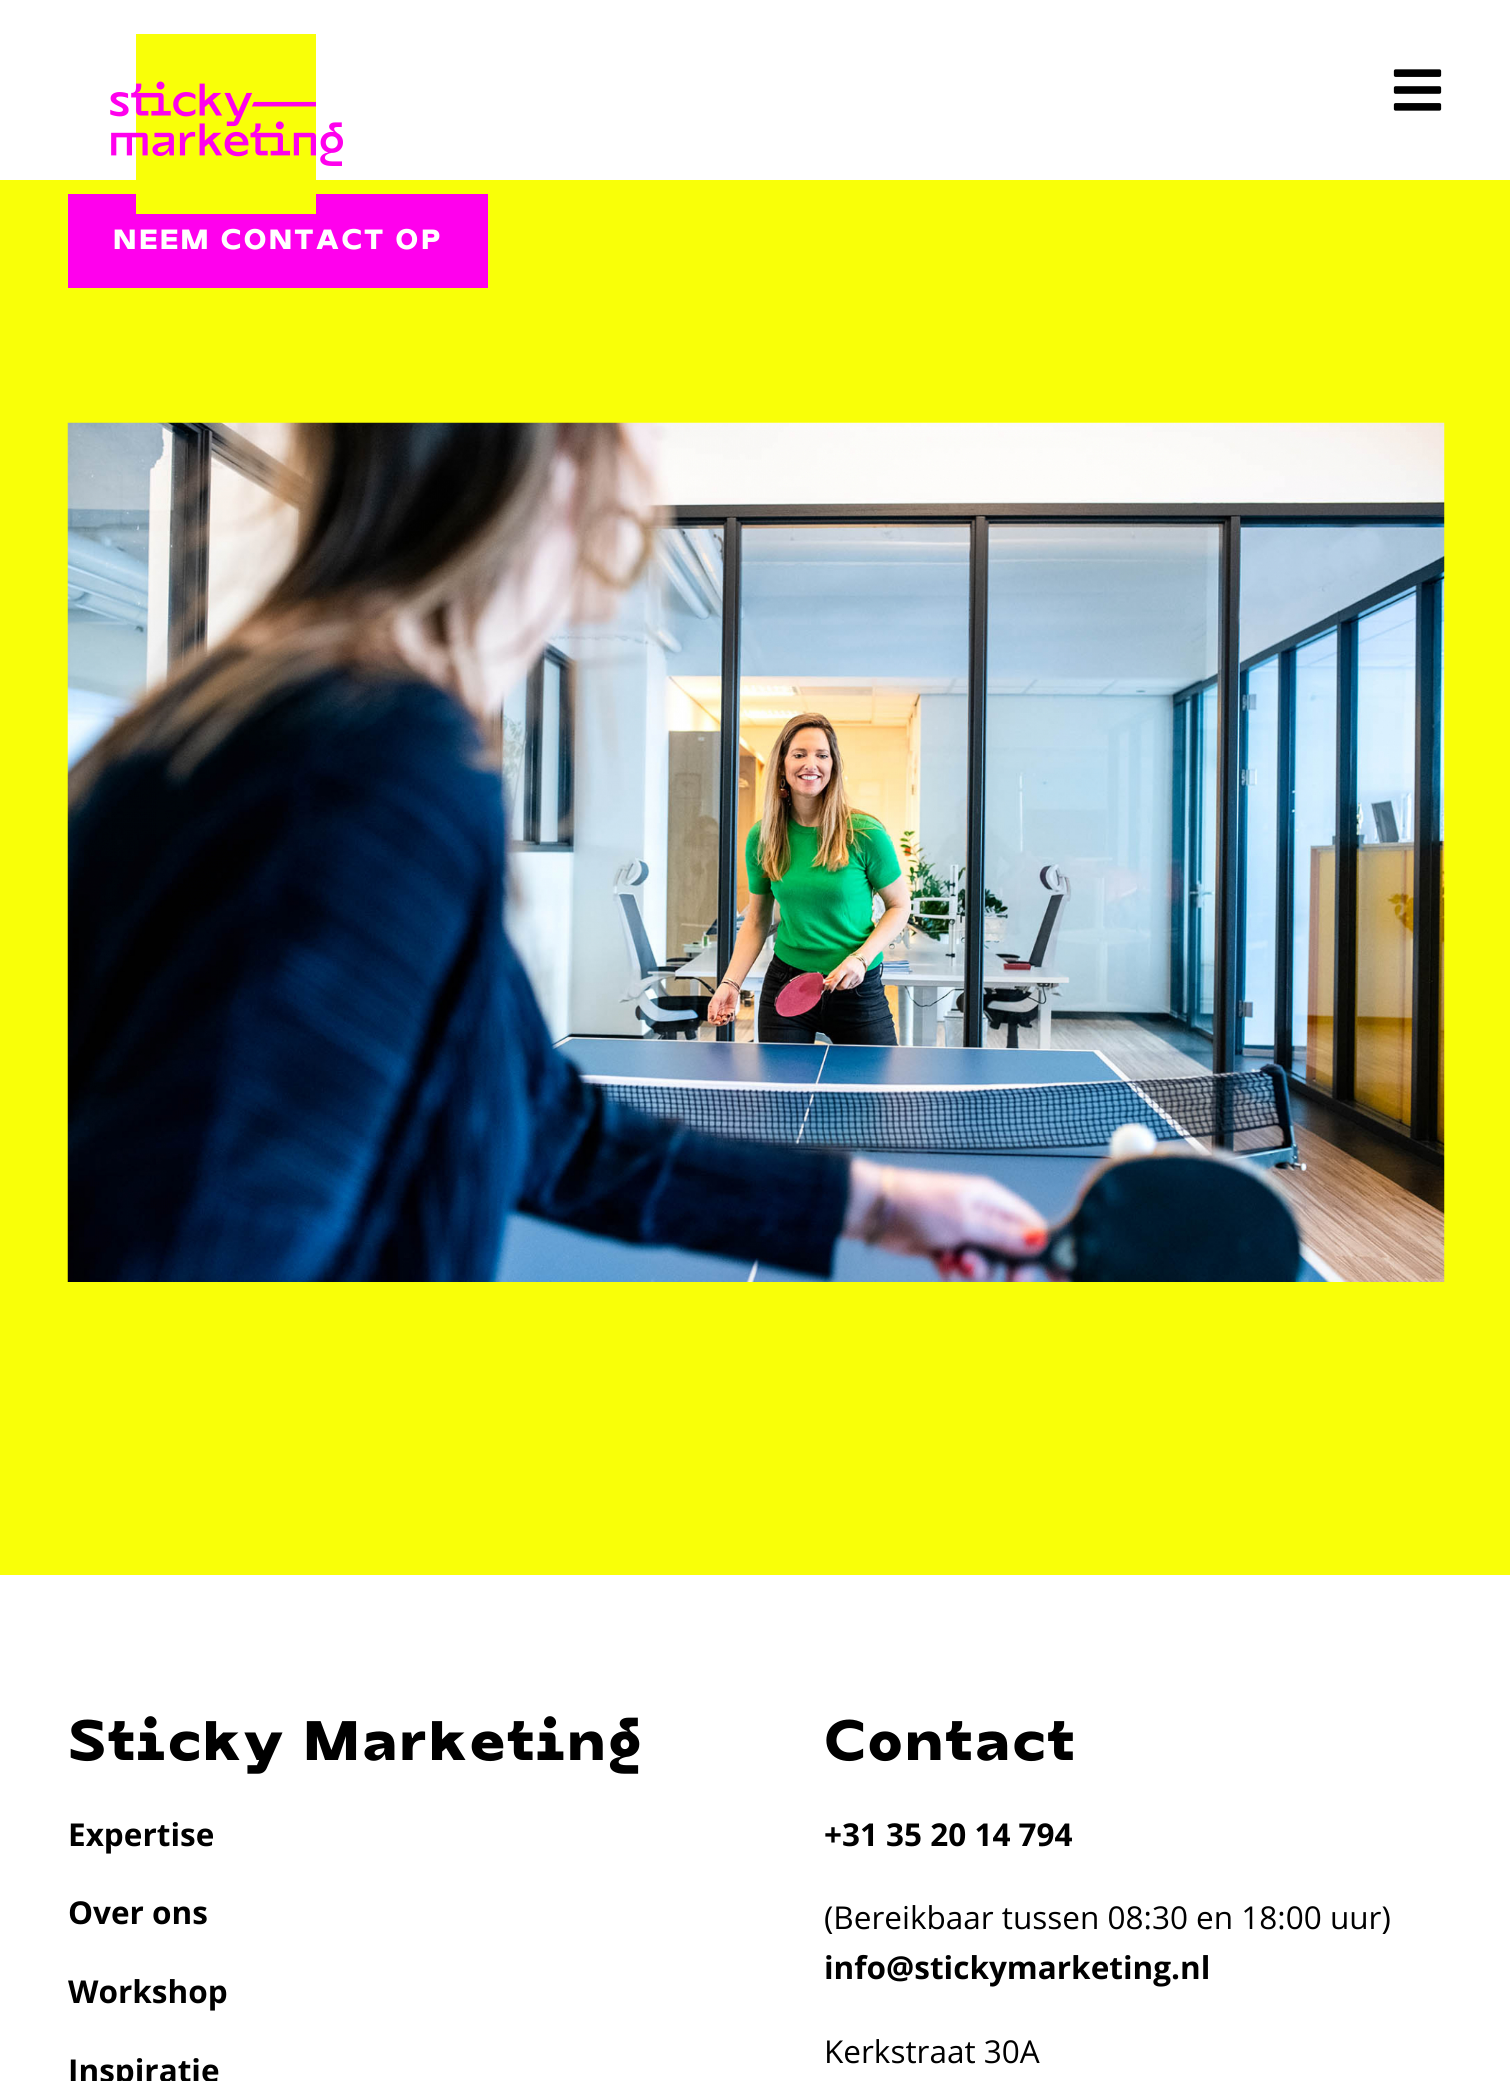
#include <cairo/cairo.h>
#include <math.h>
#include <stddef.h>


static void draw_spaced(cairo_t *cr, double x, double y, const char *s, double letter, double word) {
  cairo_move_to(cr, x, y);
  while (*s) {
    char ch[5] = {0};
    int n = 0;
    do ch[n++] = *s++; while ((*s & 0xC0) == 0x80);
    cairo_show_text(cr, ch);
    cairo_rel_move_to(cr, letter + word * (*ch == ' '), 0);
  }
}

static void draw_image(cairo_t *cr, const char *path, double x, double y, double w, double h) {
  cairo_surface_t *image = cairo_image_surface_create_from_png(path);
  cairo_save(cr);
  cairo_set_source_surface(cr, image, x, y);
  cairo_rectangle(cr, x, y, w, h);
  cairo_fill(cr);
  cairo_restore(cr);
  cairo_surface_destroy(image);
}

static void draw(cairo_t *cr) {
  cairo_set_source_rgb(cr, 1, 1, 1);
  cairo_paint(cr);
  cairo_set_source_rgb(cr, 249 / 255.0, 1, 8 / 255.0);
  cairo_rectangle(cr, 0, 180, 1510, 1395);
  cairo_fill(cr);
  cairo_set_source_rgb(cr, 1, 0, 237 / 255.0);
  cairo_rectangle(cr, 68, 194, 420, 94);
  cairo_fill(cr);
  draw_image(cr, "images/1.png", 110, 34, 233, 180);
  draw_image(cr, "images/2.png", 1393, 69, 49, 42);
  draw_image(cr, "images/3.png", 67, 422, 1378, 860);
  cairo_select_font_face(cr, "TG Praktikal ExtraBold", CAIRO_FONT_SLANT_NORMAL, CAIRO_FONT_WEIGHT_NORMAL);
  cairo_set_font_size(cr, 27);
  cairo_set_source_rgb(cr, 1, 1, 1);
  draw_spaced(cr, 113, 249, "NEEM CONTACT OP", 2.25, 0);
  cairo_set_font_size(cr, 54);
  cairo_set_source_rgb(cr, 0, 0, 0);
  draw_spaced(cr, 68, 1760, "Sticky Marketing", 2.25, 0);
  cairo_select_font_face(cr, "Open Sans", CAIRO_FONT_SLANT_NORMAL, CAIRO_FONT_WEIGHT_BOLD);
  cairo_set_font_size(cr, 31.5);
  cairo_move_to(cr, 68, 1846);
  cairo_show_text(cr, "Expertise");
  cairo_move_to(cr, 68, 1924);
  cairo_show_text(cr, "Over ons");
  cairo_move_to(cr, 68, 2003);
  cairo_show_text(cr, "Workshop");
  cairo_move_to(cr, 68, 2082);
  cairo_show_text(cr, "Inspiratie");
  cairo_select_font_face(cr, "TG Praktikal ExtraBold", CAIRO_FONT_SLANT_NORMAL, CAIRO_FONT_WEIGHT_NORMAL);
  cairo_set_font_size(cr, 54);
  draw_spaced(cr, 824, 1760, "Contact", 2.25, 0);
  cairo_select_font_face(cr, "Open Sans", CAIRO_FONT_SLANT_NORMAL, CAIRO_FONT_WEIGHT_BOLD);
  cairo_set_font_size(cr, 31.5);
  cairo_move_to(cr, 824, 1846);
  cairo_show_text(cr, "+31 35 20 14 794");
  cairo_select_font_face(cr, "Open Sans", CAIRO_FONT_SLANT_NORMAL, CAIRO_FONT_WEIGHT_NORMAL);
  cairo_move_to(cr, 824, 1929);
  cairo_show_text(cr, "(Bereikbaar tussen 08:30 en 18:00 uur)");
  cairo_select_font_face(cr, "Open Sans", CAIRO_FONT_SLANT_NORMAL, CAIRO_FONT_WEIGHT_BOLD);
  cairo_move_to(cr, 824, 1979);
  cairo_show_text(cr, "info@stickymarketing.nl");
  cairo_select_font_face(cr, "Open Sans", CAIRO_FONT_SLANT_NORMAL, CAIRO_FONT_WEIGHT_NORMAL);
  cairo_move_to(cr, 824, 2063);
  cairo_show_text(cr, "Kerkstraat 30A");
}

int main(void) {
  cairo_surface_t *surface = cairo_image_surface_create(CAIRO_FORMAT_RGB24, 1510, 2081);
  cairo_t *cr = cairo_create(surface);
  cairo_font_options_t *options = cairo_font_options_create();
  cairo_font_options_set_hint_metrics(options, CAIRO_HINT_METRICS_OFF);
  cairo_font_options_set_hint_style(options, CAIRO_HINT_STYLE_NONE);
  cairo_set_font_options(cr, options);
  cairo_set_miter_limit(cr, 4);
  draw(cr);
  cairo_surface_write_to_png(surface, "out.png");
  cairo_font_options_destroy(options);
  cairo_destroy(cr);
  cairo_surface_destroy(surface);
  return 0;
}
